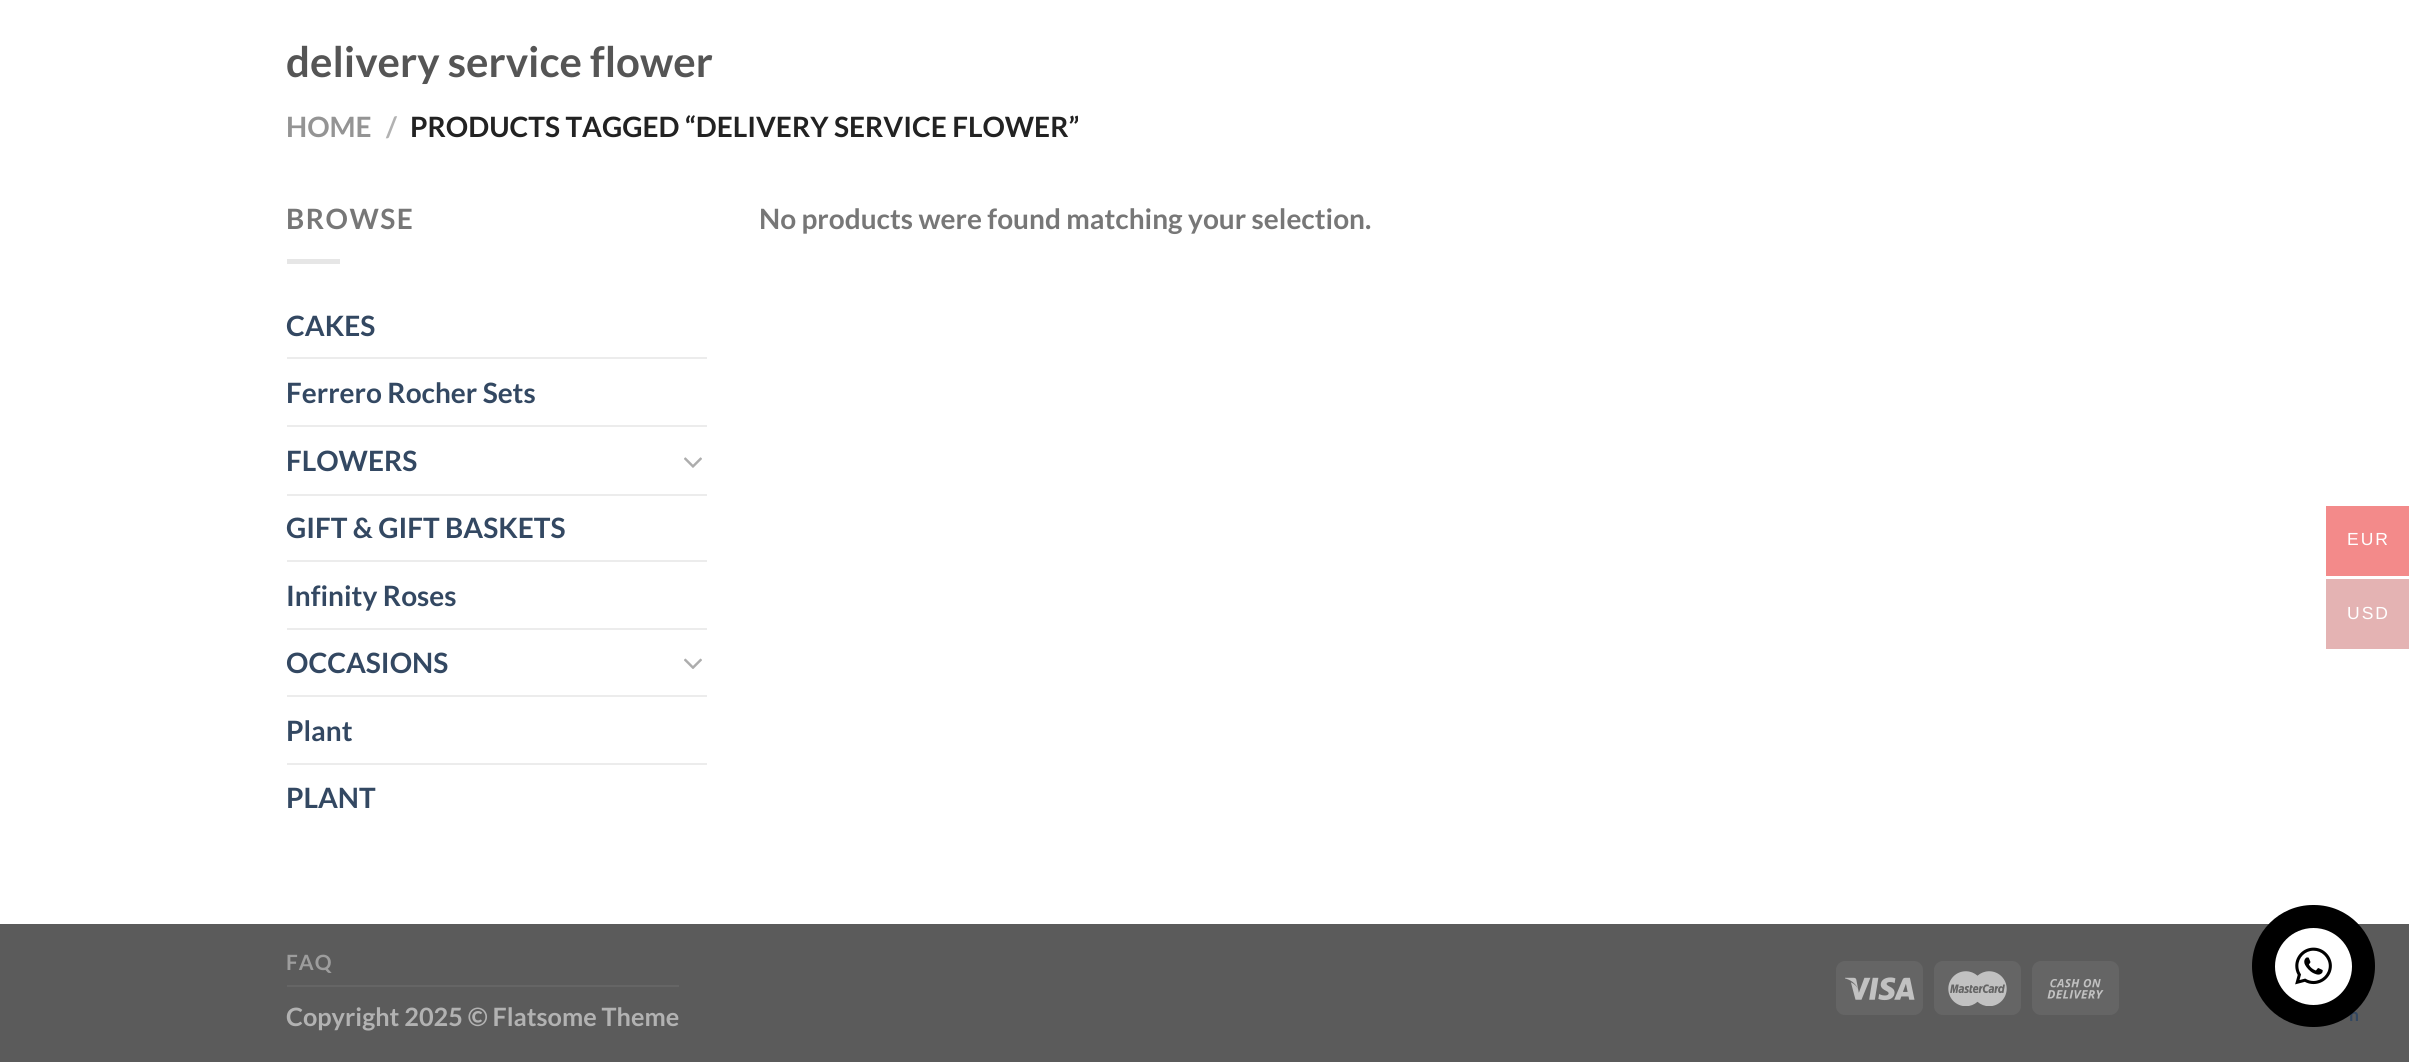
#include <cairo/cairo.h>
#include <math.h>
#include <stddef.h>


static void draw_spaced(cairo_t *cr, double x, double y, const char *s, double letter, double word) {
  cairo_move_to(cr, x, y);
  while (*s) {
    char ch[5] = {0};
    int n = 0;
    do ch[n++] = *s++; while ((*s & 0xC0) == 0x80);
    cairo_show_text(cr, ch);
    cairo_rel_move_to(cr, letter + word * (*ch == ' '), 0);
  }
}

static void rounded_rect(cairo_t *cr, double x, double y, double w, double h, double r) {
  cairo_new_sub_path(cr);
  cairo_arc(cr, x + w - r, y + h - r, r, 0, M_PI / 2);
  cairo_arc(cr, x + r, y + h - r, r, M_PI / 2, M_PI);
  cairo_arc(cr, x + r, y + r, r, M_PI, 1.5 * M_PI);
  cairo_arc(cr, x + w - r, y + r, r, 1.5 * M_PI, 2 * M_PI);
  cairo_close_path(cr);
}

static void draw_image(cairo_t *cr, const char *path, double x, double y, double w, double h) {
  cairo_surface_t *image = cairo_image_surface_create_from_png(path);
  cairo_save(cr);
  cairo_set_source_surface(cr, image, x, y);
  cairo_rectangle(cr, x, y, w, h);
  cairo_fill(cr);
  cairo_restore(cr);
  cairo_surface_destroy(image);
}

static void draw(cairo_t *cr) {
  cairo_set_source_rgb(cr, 1, 1, 1);
  cairo_paint(cr);
  cairo_set_source_rgb(cr, 230 / 255.0, 230 / 255.0, 230 / 255.0);
  cairo_rectangle(cr, 287, 259, 53, 5);
  cairo_fill(cr);
  cairo_set_source_rgb(cr, 236 / 255.0, 236 / 255.0, 236 / 255.0);
  cairo_rectangle(cr, 287, 357, 420, 2);
  cairo_fill(cr);
  cairo_rectangle(cr, 287, 425, 420, 2);
  cairo_fill(cr);
  draw_image(cr, "images/1.png", 684, 457, 18, 11);
  cairo_rectangle(cr, 287, 494, 420, 2);
  cairo_fill(cr);
  cairo_rectangle(cr, 287, 560, 420, 2);
  cairo_fill(cr);
  cairo_rectangle(cr, 287, 628, 420, 2);
  cairo_fill(cr);
  draw_image(cr, "images/2.png", 684, 658, 18, 11);
  cairo_rectangle(cr, 287, 695, 420, 2);
  cairo_fill(cr);
  cairo_rectangle(cr, 287, 763, 420, 2);
  cairo_fill(cr);
  cairo_set_source_rgb(cr, 91 / 255.0, 91 / 255.0, 91 / 255.0);
  cairo_rectangle(cr, 0, 924, 2409, 138);
  cairo_fill(cr);
  cairo_set_source_rgb(cr, 101 / 255.0, 101 / 255.0, 101 / 255.0);
  cairo_rectangle(cr, 287, 985, 392, 2);
  cairo_fill(cr);
  rounded_rect(cr, 1836, 961, 87, 54, 9);
  cairo_fill(cr);
  draw_image(cr, "images/3.png", 1845, 977, 70, 24);
  rounded_rect(cr, 1934, 961, 87, 54, 9);
  cairo_fill(cr);
  draw_image(cr, "images/4.png", 1948, 971, 59, 35);
  rounded_rect(cr, 2032, 961, 87, 54, 9);
  cairo_fill(cr);
  draw_image(cr, "images/5.png", 2047, 979, 57, 20);
  cairo_set_source_rgb(cr, 243 / 255.0, 138 / 255.0, 138 / 255.0);
  cairo_rectangle(cr, 2326, 506, 83, 70);
  cairo_fill(cr);
  cairo_set_source_rgb(cr, 228 / 255.0, 179 / 255.0, 179 / 255.0);
  cairo_rectangle(cr, 2326, 579, 83, 70);
  cairo_fill(cr);
  cairo_select_font_face(cr, "Lato", CAIRO_FONT_SLANT_NORMAL, CAIRO_FONT_WEIGHT_BOLD);
  cairo_set_font_size(cr, 42);
  cairo_set_source_rgb(cr, 85 / 255.0, 85 / 255.0, 85 / 255.0);
  cairo_move_to(cr, 286, 77);
  cairo_show_text(cr, "delivery service flower");
  cairo_set_font_size(cr, 28);
  cairo_set_source_rgb(cr, 148 / 255.0, 148 / 255.0, 148 / 255.0);
  cairo_move_to(cr, 286, 137);
  cairo_show_text(cr, "HOME");
  cairo_set_source_rgb(cr, 178 / 255.0, 178 / 255.0, 178 / 255.0);
  cairo_move_to(cr, 386, 137);
  cairo_show_text(cr, "/");
  cairo_set_source_rgb(cr, 34 / 255.0, 34 / 255.0, 34 / 255.0);
  cairo_move_to(cr, 410, 137);
  cairo_show_text(cr, "PRODUCTS TAGGED “DELIVERY SERVICE FLOWER”");
  cairo_set_source_rgb(cr, 119 / 255.0, 119 / 255.0, 119 / 255.0);
  draw_spaced(cr, 286, 229, "BROWSE", 1.5, 0);
  cairo_set_source_rgb(cr, 51 / 255.0, 72 / 255.0, 98 / 255.0);
  cairo_move_to(cr, 286, 336);
  cairo_show_text(cr, "CAKES");
  cairo_move_to(cr, 286, 403);
  cairo_show_text(cr, "Ferrero Rocher Sets");
  cairo_move_to(cr, 286, 471);
  cairo_show_text(cr, "FLOWERS");
  cairo_move_to(cr, 286, 538);
  cairo_show_text(cr, "GIFT & GIFT BASKETS");
  cairo_move_to(cr, 286, 606);
  cairo_show_text(cr, "Infinity Roses");
  cairo_move_to(cr, 286, 673);
  cairo_show_text(cr, "OCCASIONS");
  cairo_move_to(cr, 286, 741);
  cairo_show_text(cr, "Plant");
  cairo_move_to(cr, 286, 808);
  cairo_show_text(cr, "PLANT");
  cairo_set_source_rgb(cr, 119 / 255.0, 119 / 255.0, 119 / 255.0);
  cairo_move_to(cr, 759, 229);
  cairo_show_text(cr, "No products were found matching your selection.");
  cairo_set_font_size(cr, 21);
  cairo_set_source_rgb(cr, 157 / 255.0, 157 / 255.0, 157 / 255.0);
  draw_spaced(cr, 286, 970, "FAQ", 1, 0);
  cairo_set_font_size(cr, 25.25);
  cairo_set_source_rgb(cr, 178 / 255.0, 178 / 255.0, 178 / 255.0);
  cairo_move_to(cr, 286, 1026);
  cairo_show_text(cr, "Copyright 2025 © Flatsome Theme");
  cairo_select_font_face(cr, "Liberation Sans", CAIRO_FONT_SLANT_NORMAL, CAIRO_FONT_WEIGHT_NORMAL);
  cairo_set_font_size(cr, 17.5);
  cairo_set_source_rgb(cr, 1, 1, 1);
  draw_spaced(cr, 2347, 545, "EUR", 2, 0);
  draw_spaced(cr, 2347, 619, "USD", 2, 0);
  cairo_select_font_face(cr, "Lato", CAIRO_FONT_SLANT_NORMAL, CAIRO_FONT_WEIGHT_BOLD);
  cairo_set_source_rgb(cr, 51 / 255.0, 72 / 255.0, 98 / 255.0);
  cairo_move_to(cr, 2349, 1021);
  cairo_show_text(cr, "h");
  cairo_set_source_rgb(cr, 0, 0, 0);
  rounded_rect(cr, 2252, 905, 123, 122, 61);
  cairo_fill(cr);
  cairo_set_source_rgb(cr, 1, 1, 1);
  cairo_arc(cr, 2313.5, 966.5, 38.5, 0, 2 * M_PI);
  cairo_fill(cr);
  draw_image(cr, "images/6.png", 2295, 947, 37, 38);
}

int main(void) {
  cairo_surface_t *surface = cairo_image_surface_create(CAIRO_FORMAT_RGB24, 2409, 1062);
  cairo_t *cr = cairo_create(surface);
  cairo_font_options_t *options = cairo_font_options_create();
  cairo_font_options_set_hint_metrics(options, CAIRO_HINT_METRICS_OFF);
  cairo_font_options_set_hint_style(options, CAIRO_HINT_STYLE_NONE);
  cairo_set_font_options(cr, options);
  cairo_set_miter_limit(cr, 4);
  draw(cr);
  cairo_surface_write_to_png(surface, "out.png");
  cairo_font_options_destroy(options);
  cairo_destroy(cr);
  cairo_surface_destroy(surface);
  return 0;
}
